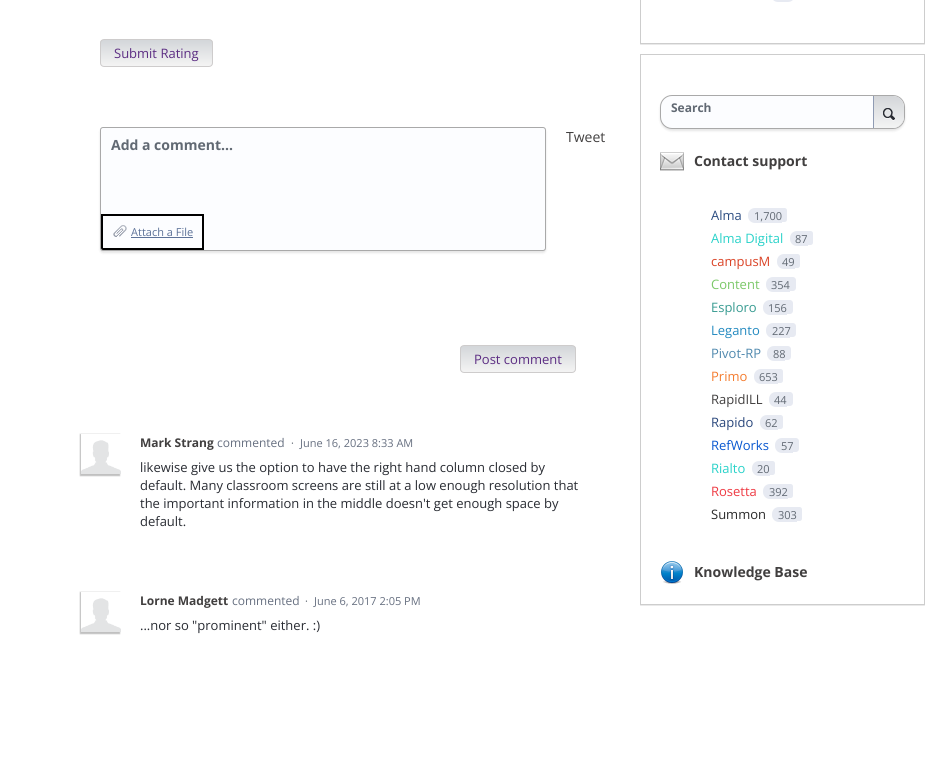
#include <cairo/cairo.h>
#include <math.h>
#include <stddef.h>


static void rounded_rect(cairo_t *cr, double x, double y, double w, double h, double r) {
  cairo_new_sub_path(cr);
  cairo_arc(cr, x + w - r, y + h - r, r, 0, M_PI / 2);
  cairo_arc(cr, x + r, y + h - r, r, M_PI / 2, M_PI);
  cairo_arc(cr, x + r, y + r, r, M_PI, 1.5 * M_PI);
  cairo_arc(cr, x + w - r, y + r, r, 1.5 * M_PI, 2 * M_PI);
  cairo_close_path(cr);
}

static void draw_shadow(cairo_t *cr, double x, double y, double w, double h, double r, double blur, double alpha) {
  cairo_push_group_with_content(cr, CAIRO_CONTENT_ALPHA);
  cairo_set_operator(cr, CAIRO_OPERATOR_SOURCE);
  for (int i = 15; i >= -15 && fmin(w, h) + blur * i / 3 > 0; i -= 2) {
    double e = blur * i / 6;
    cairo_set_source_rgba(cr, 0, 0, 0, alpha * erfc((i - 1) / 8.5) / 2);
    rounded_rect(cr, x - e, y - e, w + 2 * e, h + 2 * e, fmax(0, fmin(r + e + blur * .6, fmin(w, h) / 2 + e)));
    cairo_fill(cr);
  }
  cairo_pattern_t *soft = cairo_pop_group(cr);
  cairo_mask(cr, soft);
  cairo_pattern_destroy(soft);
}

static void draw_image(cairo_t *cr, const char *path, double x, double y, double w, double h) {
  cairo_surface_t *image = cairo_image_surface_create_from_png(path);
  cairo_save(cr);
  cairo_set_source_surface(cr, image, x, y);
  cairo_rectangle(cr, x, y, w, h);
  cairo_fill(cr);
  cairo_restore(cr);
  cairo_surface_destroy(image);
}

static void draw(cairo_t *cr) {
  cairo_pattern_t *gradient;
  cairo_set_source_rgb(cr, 1, 1, 1);
  cairo_paint(cr);
  cairo_save(cr);
  rounded_rect(cr, 100, 39, 113, 28, 4);
  cairo_clip(cr);
  gradient = cairo_pattern_create_linear(101, 40, 101, 66);
  cairo_pattern_add_color_stop_rgba(gradient, 0, 211 / 255.0, 214 / 255.0, 217 / 255.0, 1);
  cairo_pattern_add_color_stop_rgba(gradient, 1, 244 / 255.0, 244 / 255.0, 244 / 255.0, 1);
  cairo_set_source(cr, gradient);
  cairo_pattern_destroy(gradient);
  cairo_rectangle(cr, 100, 40, 113, 26);
  cairo_fill(cr);
  cairo_restore(cr);
  rounded_rect(cr, 100.5, 39.5, 112, 27, 3.5);
  cairo_set_source_rgb(cr, 206 / 255.0, 204 / 255.0, 204 / 255.0);
  cairo_set_line_width(cr, 1);
  cairo_stroke(cr);
  cairo_set_source_rgb(cr, 0, 0, 0);
  draw_shadow(cr, 100, 129, 446, 124, 3, 1, 0.1);
  cairo_set_source_rgb(cr, 252 / 255.0, 253 / 255.0, 1);
  rounded_rect(cr, 100.5, 127.5, 445, 123, 2.5);
  cairo_fill_preserve(cr);
  cairo_set_source_rgb(cr, 169 / 255.0, 169 / 255.0, 169 / 255.0);
  cairo_stroke(cr);
  draw_image(cr, "images/1.png", 113, 225, 14, 12);
  cairo_set_source_rgb(cr, 0, 0, 0);
  cairo_set_fill_rule(cr, CAIRO_FILL_RULE_EVEN_ODD);
  cairo_new_path(cr);
  cairo_move_to(cr, 101, 214);
  cairo_line_to(cr, 101, 248);
  cairo_curve_to(cr, 101, 249, 102, 250, 103, 250);
  cairo_line_to(cr, 204, 250);
  cairo_line_to(cr, 204, 214);
  cairo_close_path(cr);
  cairo_move_to(cr, 103, 216);
  cairo_line_to(cr, 103, 248);
  cairo_line_to(cr, 202, 248);
  cairo_line_to(cr, 202, 216);
  cairo_close_path(cr);
  cairo_fill(cr);
  cairo_set_source_rgb(cr, 93 / 255.0, 114 / 255.0, 152 / 255.0);
  cairo_rectangle(cr, 131, 237, 62, 1);
  cairo_fill(cr);
  cairo_save(cr);
  cairo_set_fill_rule(cr, CAIRO_FILL_RULE_WINDING);
  rounded_rect(cr, 460, 345, 116, 28, 4);
  cairo_clip(cr);
  gradient = cairo_pattern_create_linear(461, 346, 461, 372);
  cairo_pattern_add_color_stop_rgba(gradient, 0, 211 / 255.0, 214 / 255.0, 217 / 255.0, 1);
  cairo_pattern_add_color_stop_rgba(gradient, 1, 244 / 255.0, 244 / 255.0, 244 / 255.0, 1);
  cairo_set_source(cr, gradient);
  cairo_pattern_destroy(gradient);
  cairo_rectangle(cr, 460, 346, 116, 26);
  cairo_fill(cr);
  cairo_restore(cr);
  rounded_rect(cr, 460.5, 345.5, 115, 27, 3.5);
  cairo_set_source_rgb(cr, 206 / 255.0, 204 / 255.0, 204 / 255.0);
  cairo_stroke(cr);
  cairo_set_source_rgb(cr, 0, 0, 0);
  draw_shadow(cr, 80, 434, 40, 42, 0, 0.5, 0.25);
  draw_image(cr, "images/2.png", 81, 434, 40, 40);
  draw_shadow(cr, 80, 592, 40, 42, 0, 0.5, 0.25);
  draw_image(cr, "images/3.png", 81, 592, 40, 40);
  cairo_save(cr);
  cairo_set_fill_rule(cr, CAIRO_FILL_RULE_WINDING);
  cairo_rectangle(cr, 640, 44, 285, 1);
  cairo_clip(cr);
  draw_shadow(cr, 640, -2, 285, 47, 0, 0.5, 0.1);
  cairo_restore(cr);
  cairo_rectangle(cr, 640.5, -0.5, 284, 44);
  cairo_set_source_rgb(cr, 205 / 255.0, 205 / 255.0, 205 / 255.0);
  cairo_stroke(cr);
  cairo_set_source_rgb(cr, 231 / 255.0, 234 / 255.0, 242 / 255.0);
  rounded_rect(cr, 771, -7, 24, 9, 7);
  cairo_fill(cr);
  cairo_save(cr);
  cairo_set_fill_rule(cr, CAIRO_FILL_RULE_WINDING);
  cairo_rectangle(cr, 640, 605, 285, 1);
  cairo_clip(cr);
  cairo_set_source_rgb(cr, 0, 0, 0);
  draw_shadow(cr, 640, 55, 285, 551, 0, 0.5, 0.1);
  cairo_restore(cr);
  cairo_rectangle(cr, 640.5, 54.5, 284, 550);
  cairo_set_source_rgb(cr, 205 / 255.0, 205 / 255.0, 205 / 255.0);
  cairo_stroke(cr);
  cairo_set_source_rgb(cr, 0, 0, 0);
  draw_shadow(cr, 660, 97, 245, 34, 12, 1, 0.1);
  cairo_set_source_rgb(cr, 252 / 255.0, 253 / 255.0, 1);
  rounded_rect(cr, 660.5, 95.5, 244, 33, 11.5);
  cairo_fill_preserve(cr);
  cairo_set_source_rgb(cr, 169 / 255.0, 169 / 255.0, 169 / 255.0);
  cairo_stroke(cr);
  cairo_save(cr);
  cairo_set_fill_rule(cr, CAIRO_FILL_RULE_WINDING);
  cairo_new_path(cr);
  cairo_move_to(cr, 873, 95);
  cairo_line_to(cr, 893, 95);
  cairo_curve_to(cr, 899.5, 95, 905, 100.5, 905, 107);
  cairo_line_to(cr, 905, 116);
  cairo_curve_to(cr, 905, 122.5, 899.5, 128, 893, 128);
  cairo_line_to(cr, 873, 128);
  cairo_close_path(cr);
  cairo_clip(cr);
  gradient = cairo_pattern_create_linear(874, 96, 874, 128);
  cairo_pattern_add_color_stop_rgba(gradient, 0, 211 / 255.0, 214 / 255.0, 217 / 255.0, 1);
  cairo_pattern_add_color_stop_rgba(gradient, 1, 244 / 255.0, 244 / 255.0, 244 / 255.0, 1);
  cairo_set_source(cr, gradient);
  cairo_pattern_destroy(gradient);
  cairo_new_path(cr);
  cairo_move_to(cr, 873, 96);
  cairo_line_to(cr, 893, 96);
  cairo_curve_to(cr, 899, 96, 904, 101, 904, 107);
  cairo_line_to(cr, 904, 117);
  cairo_curve_to(cr, 904, 123, 899, 128, 893, 128);
  cairo_line_to(cr, 873, 128);
  cairo_close_path(cr);
  cairo_fill(cr);
  cairo_restore(cr);
  cairo_set_source_rgb(cr, 206 / 255.0, 204 / 255.0, 204 / 255.0);
  cairo_set_fill_rule(cr, CAIRO_FILL_RULE_WINDING);
  cairo_new_path(cr);
  cairo_move_to(cr, 893, 96);
  cairo_curve_to(cr, 896, 96, 899, 97, 901, 99);
  cairo_curve_to(cr, 899, 97.5, 896, 96, 893, 96);
  cairo_close_path(cr);
  cairo_fill(cr);
  cairo_set_fill_rule(cr, CAIRO_FILL_RULE_EVEN_ODD);
  cairo_new_path(cr);
  cairo_move_to(cr, 904, 116);
  cairo_curve_to(cr, 904, 122.5, 900, 128, 893, 128);
  cairo_curve_to(cr, 899, 128, 904, 122.5, 904, 116);
  cairo_close_path(cr);
  cairo_move_to(cr, 901, 99);
  cairo_curve_to(cr, 902.5, 101, 904, 104, 904, 107);
  cairo_curve_to(cr, 904, 104, 903, 101, 901, 99);
  cairo_close_path(cr);
  cairo_fill(cr);
  cairo_set_source_rgb(cr, 143 / 255.0, 155 / 255.0, 179 / 255.0);
  cairo_rectangle(cr, 873, 96, 1, 32);
  cairo_fill(cr);
  draw_image(cr, "images/4.png", 883, 108, 12, 13);
  draw_image(cr, "images/5.png", 660, 152, 24, 19);
  cairo_set_source_rgb(cr, 231 / 255.0, 234 / 255.0, 242 / 255.0);
  cairo_new_path(cr);
  cairo_move_to(cr, 755, 208);
  cairo_line_to(cr, 782, 208);
  cairo_line_to(cr, 782, 223);
  cairo_line_to(cr, 755, 223);
  cairo_curve_to(cr, 751, 223, 748, 220, 748, 216);
  cairo_line_to(cr, 748, 215);
  cairo_curve_to(cr, 748, 211, 751, 208, 755, 208);
  cairo_close_path(cr);
  cairo_fill(cr);
  cairo_new_path(cr);
  cairo_move_to(cr, 782, 208);
  cairo_line_to(cr, 784.5, 208);
  cairo_curve_to(cr, 786, 208, 787, 209, 787, 210.5);
  cairo_line_to(cr, 787, 219.5);
  cairo_curve_to(cr, 787, 221, 786, 222, 784.5, 222);
  cairo_line_to(cr, 782, 222);
  cairo_close_path(cr);
  cairo_fill(cr);
  cairo_new_path(cr);
  cairo_move_to(cr, 797, 231);
  cairo_line_to(cr, 808, 231);
  cairo_line_to(cr, 808, 246);
  cairo_line_to(cr, 797, 246);
  cairo_curve_to(cr, 793, 246, 790, 243, 790, 239);
  cairo_line_to(cr, 790, 238);
  cairo_curve_to(cr, 790, 234, 793, 231, 797, 231);
  cairo_close_path(cr);
  cairo_fill(cr);
  cairo_new_path(cr);
  cairo_move_to(cr, 808, 231);
  cairo_line_to(cr, 810.5, 231);
  cairo_curve_to(cr, 812, 231, 813, 232, 813, 233.5);
  cairo_line_to(cr, 813, 242.5);
  cairo_curve_to(cr, 813, 244, 812, 245, 810.5, 245);
  cairo_line_to(cr, 808, 245);
  cairo_close_path(cr);
  cairo_fill(cr);
  cairo_new_path(cr);
  cairo_move_to(cr, 784, 254);
  cairo_line_to(cr, 795, 254);
  cairo_line_to(cr, 795, 269);
  cairo_line_to(cr, 784, 269);
  cairo_curve_to(cr, 780, 269, 777, 266, 777, 262);
  cairo_line_to(cr, 777, 261);
  cairo_curve_to(cr, 777, 257, 780, 254, 784, 254);
  cairo_close_path(cr);
  cairo_fill(cr);
  cairo_new_path(cr);
  cairo_move_to(cr, 795, 254);
  cairo_line_to(cr, 797.5, 254);
  cairo_curve_to(cr, 799, 254, 800, 255, 800, 256.5);
  cairo_line_to(cr, 800, 265.5);
  cairo_curve_to(cr, 800, 267, 799, 268, 797.5, 268);
  cairo_line_to(cr, 795, 268);
  cairo_close_path(cr);
  cairo_fill(cr);
  cairo_new_path(cr);
  cairo_move_to(cr, 773, 277);
  cairo_line_to(cr, 790, 277);
  cairo_line_to(cr, 790, 292);
  cairo_line_to(cr, 773, 292);
  cairo_curve_to(cr, 769, 292, 766, 289, 766, 285);
  cairo_line_to(cr, 766, 284);
  cairo_curve_to(cr, 766, 280, 769, 277, 773, 277);
  cairo_close_path(cr);
  cairo_fill(cr);
  cairo_new_path(cr);
  cairo_move_to(cr, 790, 277);
  cairo_line_to(cr, 793, 277);
  cairo_curve_to(cr, 794.5, 277, 796, 278.5, 796, 280);
  cairo_line_to(cr, 796, 288);
  cairo_curve_to(cr, 796, 289.5, 794.5, 291, 793, 291);
  cairo_line_to(cr, 790, 291);
  cairo_close_path(cr);
  cairo_fill(cr);
  cairo_new_path(cr);
  cairo_move_to(cr, 770, 300);
  cairo_line_to(cr, 787, 300);
  cairo_line_to(cr, 787, 315);
  cairo_line_to(cr, 770, 315);
  cairo_curve_to(cr, 766, 315, 763, 312, 763, 308);
  cairo_line_to(cr, 763, 307);
  cairo_curve_to(cr, 763, 303, 766, 300, 770, 300);
  cairo_close_path(cr);
  cairo_fill(cr);
  cairo_new_path(cr);
  cairo_move_to(cr, 787, 300);
  cairo_line_to(cr, 790, 300);
  cairo_curve_to(cr, 791.5, 300, 793, 301.5, 793, 303);
  cairo_line_to(cr, 793, 311);
  cairo_curve_to(cr, 793, 312.5, 791.5, 314, 790, 314);
  cairo_line_to(cr, 787, 314);
  cairo_close_path(cr);
  cairo_fill(cr);
  cairo_new_path(cr);
  cairo_move_to(cr, 773, 323);
  cairo_line_to(cr, 790, 323);
  cairo_line_to(cr, 790, 338);
  cairo_line_to(cr, 773, 338);
  cairo_curve_to(cr, 769, 338, 766, 335, 766, 331);
  cairo_line_to(cr, 766, 330);
  cairo_curve_to(cr, 766, 326, 769, 323, 773, 323);
  cairo_close_path(cr);
  cairo_fill(cr);
  cairo_new_path(cr);
  cairo_move_to(cr, 790, 323);
  cairo_line_to(cr, 793, 323);
  cairo_curve_to(cr, 794.5, 323, 796, 324.5, 796, 326);
  cairo_line_to(cr, 796, 334);
  cairo_curve_to(cr, 796, 335.5, 794.5, 337, 793, 337);
  cairo_line_to(cr, 790, 337);
  cairo_close_path(cr);
  cairo_fill(cr);
  cairo_new_path(cr);
  cairo_move_to(cr, 774, 346);
  cairo_line_to(cr, 785, 346);
  cairo_line_to(cr, 785, 361);
  cairo_line_to(cr, 774, 361);
  cairo_curve_to(cr, 770, 361, 767, 358, 767, 354);
  cairo_line_to(cr, 767, 353);
  cairo_curve_to(cr, 767, 349, 770, 346, 774, 346);
  cairo_close_path(cr);
  cairo_fill(cr);
  cairo_new_path(cr);
  cairo_move_to(cr, 785, 346);
  cairo_line_to(cr, 788, 346);
  cairo_curve_to(cr, 789.5, 346, 791, 347.5, 791, 349);
  cairo_line_to(cr, 791, 357);
  cairo_curve_to(cr, 791, 358.5, 789.5, 360, 788, 360);
  cairo_line_to(cr, 785, 360);
  cairo_close_path(cr);
  cairo_fill(cr);
  cairo_new_path(cr);
  cairo_move_to(cr, 761, 369);
  cairo_line_to(cr, 778, 369);
  cairo_line_to(cr, 778, 384);
  cairo_line_to(cr, 761, 384);
  cairo_curve_to(cr, 757, 384, 754, 381, 754, 377);
  cairo_line_to(cr, 754, 376);
  cairo_curve_to(cr, 754, 372, 757, 369, 761, 369);
  cairo_close_path(cr);
  cairo_fill(cr);
  cairo_new_path(cr);
  cairo_move_to(cr, 778, 369);
  cairo_line_to(cr, 780.5, 369);
  cairo_curve_to(cr, 782, 369, 783, 370, 783, 371.5);
  cairo_line_to(cr, 783, 380.5);
  cairo_curve_to(cr, 783, 382, 782, 383, 780.5, 383);
  cairo_line_to(cr, 778, 383);
  cairo_close_path(cr);
  cairo_fill(cr);
  cairo_new_path(cr);
  cairo_move_to(cr, 776, 392);
  cairo_line_to(cr, 787, 392);
  cairo_line_to(cr, 787, 407);
  cairo_line_to(cr, 776, 407);
  cairo_curve_to(cr, 772, 407, 769, 404, 769, 400);
  cairo_line_to(cr, 769, 399);
  cairo_curve_to(cr, 769, 395, 772, 392, 776, 392);
  cairo_close_path(cr);
  cairo_fill(cr);
  cairo_new_path(cr);
  cairo_move_to(cr, 787, 392);
  cairo_line_to(cr, 790, 392);
  cairo_curve_to(cr, 791.5, 392, 793, 393.5, 793, 395);
  cairo_line_to(cr, 793, 403);
  cairo_curve_to(cr, 793, 404.5, 791.5, 406, 790, 406);
  cairo_line_to(cr, 787, 406);
  cairo_close_path(cr);
  cairo_fill(cr);
  cairo_new_path(cr);
  cairo_move_to(cr, 767, 415);
  cairo_line_to(cr, 778, 415);
  cairo_line_to(cr, 778, 430);
  cairo_line_to(cr, 767, 430);
  cairo_curve_to(cr, 763, 430, 760, 427, 760, 423);
  cairo_line_to(cr, 760, 422);
  cairo_curve_to(cr, 760, 418, 763, 415, 767, 415);
  cairo_close_path(cr);
  cairo_fill(cr);
  cairo_new_path(cr);
  cairo_move_to(cr, 778, 415);
  cairo_line_to(cr, 780.5, 415);
  cairo_curve_to(cr, 782, 415, 783, 416, 783, 417.5);
  cairo_line_to(cr, 783, 426.5);
  cairo_curve_to(cr, 783, 428, 782, 429, 780.5, 429);
  cairo_line_to(cr, 778, 429);
  cairo_close_path(cr);
  cairo_fill(cr);
  cairo_new_path(cr);
  cairo_move_to(cr, 782, 438);
  cairo_line_to(cr, 793, 438);
  cairo_line_to(cr, 793, 453);
  cairo_line_to(cr, 782, 453);
  cairo_curve_to(cr, 778, 453, 775, 450, 775, 446);
  cairo_line_to(cr, 775, 445);
  cairo_curve_to(cr, 775, 441, 778, 438, 782, 438);
  cairo_close_path(cr);
  cairo_fill(cr);
  cairo_new_path(cr);
  cairo_move_to(cr, 793, 438);
  cairo_line_to(cr, 796, 438);
  cairo_curve_to(cr, 797.5, 438, 799, 439.5, 799, 441);
  cairo_line_to(cr, 799, 449);
  cairo_curve_to(cr, 799, 450.5, 797.5, 452, 796, 452);
  cairo_line_to(cr, 793, 452);
  cairo_close_path(cr);
  cairo_fill(cr);
  cairo_new_path(cr);
  cairo_move_to(cr, 759, 461);
  cairo_line_to(cr, 770, 461);
  cairo_line_to(cr, 770, 476);
  cairo_line_to(cr, 759, 476);
  cairo_curve_to(cr, 755, 476, 752, 473, 752, 469);
  cairo_line_to(cr, 752, 468);
  cairo_curve_to(cr, 752, 464, 755, 461, 759, 461);
  cairo_close_path(cr);
  cairo_fill(cr);
  cairo_new_path(cr);
  cairo_move_to(cr, 770, 461);
  cairo_line_to(cr, 772.5, 461);
  cairo_curve_to(cr, 774, 461, 775, 462, 775, 463.5);
  cairo_line_to(cr, 775, 472.5);
  cairo_curve_to(cr, 775, 474, 774, 475, 772.5, 475);
  cairo_line_to(cr, 770, 475);
  cairo_close_path(cr);
  cairo_fill(cr);
  cairo_new_path(cr);
  cairo_move_to(cr, 770, 484);
  cairo_line_to(cr, 788, 484);
  cairo_line_to(cr, 788, 499);
  cairo_line_to(cr, 770, 499);
  cairo_curve_to(cr, 766, 499, 763, 496, 763, 492);
  cairo_line_to(cr, 763, 491);
  cairo_curve_to(cr, 763, 487, 766, 484, 770, 484);
  cairo_close_path(cr);
  cairo_fill(cr);
  cairo_new_path(cr);
  cairo_move_to(cr, 788, 484);
  cairo_line_to(cr, 790.5, 484);
  cairo_curve_to(cr, 792, 484, 793, 485, 793, 486.5);
  cairo_line_to(cr, 793, 495.5);
  cairo_curve_to(cr, 793, 497, 792, 498, 790.5, 498);
  cairo_line_to(cr, 788, 498);
  cairo_close_path(cr);
  cairo_fill(cr);
  cairo_new_path(cr);
  cairo_move_to(cr, 779, 507);
  cairo_line_to(cr, 797, 507);
  cairo_line_to(cr, 797, 522);
  cairo_line_to(cr, 779, 522);
  cairo_curve_to(cr, 775, 522, 772, 519, 772, 515);
  cairo_line_to(cr, 772, 514);
  cairo_curve_to(cr, 772, 510, 775, 507, 779, 507);
  cairo_close_path(cr);
  cairo_fill(cr);
  cairo_new_path(cr);
  cairo_move_to(cr, 797, 507);
  cairo_line_to(cr, 799.5, 507);
  cairo_curve_to(cr, 801, 507, 802, 508, 802, 509.5);
  cairo_line_to(cr, 802, 518.5);
  cairo_curve_to(cr, 802, 520, 801, 521, 799.5, 521);
  cairo_line_to(cr, 797, 521);
  cairo_close_path(cr);
  cairo_fill(cr);
  draw_image(cr, "images/6.png", 661, 561, 22, 23);
  cairo_select_font_face(cr, "Open Sans", CAIRO_FONT_SLANT_NORMAL, CAIRO_FONT_WEIGHT_NORMAL);
  cairo_set_font_size(cr, 13);
  cairo_set_source_rgb(cr, 92 / 255.0, 45 / 255.0, 131 / 255.0);
  cairo_move_to(cr, 114, 58);
  cairo_show_text(cr, "Submit Rating");
  cairo_set_font_size(cr, 14);
  cairo_set_source_rgb(cr, 65 / 255.0, 63 / 255.0, 63 / 255.0);
  cairo_move_to(cr, 566, 142);
  cairo_show_text(cr, "Tweet");
  cairo_select_font_face(cr, "Open Sans", CAIRO_FONT_SLANT_NORMAL, CAIRO_FONT_WEIGHT_BOLD);
  cairo_set_source_rgb(cr, 97 / 255.0, 105 / 255.0, 115 / 255.0);
  cairo_move_to(cr, 111, 150);
  cairo_show_text(cr, "Add a comment…");
  cairo_select_font_face(cr, "Open Sans", CAIRO_FONT_SLANT_NORMAL, CAIRO_FONT_WEIGHT_NORMAL);
  cairo_set_font_size(cr, 11);
  cairo_set_source_rgb(cr, 93 / 255.0, 114 / 255.0, 152 / 255.0);
  cairo_move_to(cr, 131, 236);
  cairo_show_text(cr, "Attach a File");
  cairo_set_font_size(cr, 13);
  cairo_set_source_rgb(cr, 92 / 255.0, 45 / 255.0, 131 / 255.0);
  cairo_move_to(cr, 474, 364);
  cairo_show_text(cr, "Post comment");
  cairo_select_font_face(cr, "Open Sans", CAIRO_FONT_SLANT_NORMAL, CAIRO_FONT_WEIGHT_BOLD);
  cairo_set_font_size(cr, 12);
  cairo_set_source_rgb(cr, 65 / 255.0, 63 / 255.0, 63 / 255.0);
  cairo_move_to(cr, 140, 447);
  cairo_show_text(cr, "Mark Strang");
  cairo_select_font_face(cr, "Open Sans", CAIRO_FONT_SLANT_NORMAL, CAIRO_FONT_WEIGHT_NORMAL);
  cairo_set_source_rgb(cr, 102 / 255.0, 111 / 255.0, 128 / 255.0);
  cairo_move_to(cr, 217, 447);
  cairo_show_text(cr, "commented");
  cairo_set_font_size(cr, 11);
  cairo_set_source_rgb(cr, 97 / 255.0, 105 / 255.0, 115 / 255.0);
  cairo_move_to(cr, 291, 447);
  cairo_show_text(cr, "·");
  cairo_set_source_rgb(cr, 102 / 255.0, 111 / 255.0, 128 / 255.0);
  cairo_move_to(cr, 300, 447);
  cairo_show_text(cr, "June 16, 2023 8:33 AM");
  cairo_set_font_size(cr, 13);
  cairo_set_source_rgb(cr, 41 / 255.0, 44 / 255.0, 51 / 255.0);
  cairo_move_to(cr, 140, 472);
  cairo_show_text(cr, "likewise give us the option to have the right hand column closed by");
  cairo_move_to(cr, 140, 490);
  cairo_show_text(cr, "default. Many classroom screens are still at a low enough resolution that");
  cairo_move_to(cr, 140, 508);
  cairo_show_text(cr, "the important information in the middle doesn't get enough space by");
  cairo_move_to(cr, 140, 526);
  cairo_show_text(cr, "default.");
  cairo_select_font_face(cr, "Open Sans", CAIRO_FONT_SLANT_NORMAL, CAIRO_FONT_WEIGHT_BOLD);
  cairo_set_font_size(cr, 12);
  cairo_set_source_rgb(cr, 65 / 255.0, 63 / 255.0, 63 / 255.0);
  cairo_move_to(cr, 140, 605);
  cairo_show_text(cr, "Lorne Madgett");
  cairo_select_font_face(cr, "Open Sans", CAIRO_FONT_SLANT_NORMAL, CAIRO_FONT_WEIGHT_NORMAL);
  cairo_set_source_rgb(cr, 102 / 255.0, 111 / 255.0, 128 / 255.0);
  cairo_move_to(cr, 232, 605);
  cairo_show_text(cr, "commented");
  cairo_set_font_size(cr, 11);
  cairo_set_source_rgb(cr, 97 / 255.0, 105 / 255.0, 115 / 255.0);
  cairo_move_to(cr, 305, 605);
  cairo_show_text(cr, "·");
  cairo_set_source_rgb(cr, 102 / 255.0, 111 / 255.0, 128 / 255.0);
  cairo_move_to(cr, 314, 605);
  cairo_show_text(cr, "June 6, 2017 2:05 PM");
  cairo_set_font_size(cr, 13);
  cairo_set_source_rgb(cr, 41 / 255.0, 44 / 255.0, 51 / 255.0);
  cairo_move_to(cr, 140, 630);
  cairo_show_text(cr, "...nor so \"prominent\" either. :)");
  cairo_select_font_face(cr, "Open Sans", CAIRO_FONT_SLANT_NORMAL, CAIRO_FONT_WEIGHT_BOLD);
  cairo_set_font_size(cr, 12);
  cairo_set_source_rgb(cr, 97 / 255.0, 105 / 255.0, 115 / 255.0);
  cairo_move_to(cr, 671, 112);
  cairo_show_text(cr, "Search");
  cairo_set_font_size(cr, 14);
  cairo_set_source_rgb(cr, 65 / 255.0, 63 / 255.0, 63 / 255.0);
  cairo_move_to(cr, 694, 166);
  cairo_show_text(cr, "Contact support");
  cairo_select_font_face(cr, "Open Sans", CAIRO_FONT_SLANT_NORMAL, CAIRO_FONT_WEIGHT_NORMAL);
  cairo_set_font_size(cr, 13);
  cairo_set_source_rgb(cr, 44 / 255.0, 77 / 255.0, 130 / 255.0);
  cairo_move_to(cr, 711, 220);
  cairo_show_text(cr, "Alma");
  cairo_set_font_size(cr, 11);
  cairo_set_source_rgb(cr, 97 / 255.0, 105 / 255.0, 115 / 255.0);
  cairo_move_to(cr, 754, 220);
  cairo_show_text(cr, "1,700");
  cairo_set_font_size(cr, 13);
  cairo_set_source_rgb(cr, 42 / 255.0, 210 / 255.0, 201 / 255.0);
  cairo_move_to(cr, 711, 243);
  cairo_show_text(cr, "Alma Digital");
  cairo_set_font_size(cr, 11);
  cairo_set_source_rgb(cr, 97 / 255.0, 105 / 255.0, 115 / 255.0);
  cairo_move_to(cr, 795, 243);
  cairo_show_text(cr, "87");
  cairo_set_font_size(cr, 13);
  cairo_set_source_rgb(cr, 218 / 255.0, 67 / 255.0, 38 / 255.0);
  cairo_move_to(cr, 711, 266);
  cairo_show_text(cr, "campusM");
  cairo_set_font_size(cr, 11);
  cairo_set_source_rgb(cr, 97 / 255.0, 105 / 255.0, 115 / 255.0);
  cairo_move_to(cr, 782, 266);
  cairo_show_text(cr, "49");
  cairo_set_font_size(cr, 13);
  cairo_set_source_rgb(cr, 123 / 255.0, 200 / 255.0, 104 / 255.0);
  cairo_move_to(cr, 711, 289);
  cairo_show_text(cr, "Content");
  cairo_set_font_size(cr, 11);
  cairo_set_source_rgb(cr, 97 / 255.0, 105 / 255.0, 115 / 255.0);
  cairo_move_to(cr, 771, 289);
  cairo_show_text(cr, "354");
  cairo_set_font_size(cr, 13);
  cairo_set_source_rgb(cr, 56 / 255.0, 155 / 255.0, 145 / 255.0);
  cairo_move_to(cr, 711, 312);
  cairo_show_text(cr, "Esploro");
  cairo_set_font_size(cr, 11);
  cairo_set_source_rgb(cr, 97 / 255.0, 105 / 255.0, 115 / 255.0);
  cairo_move_to(cr, 768, 312);
  cairo_show_text(cr, "156");
  cairo_set_font_size(cr, 13);
  cairo_set_source_rgb(cr, 36 / 255.0, 138 / 255.0, 192 / 255.0);
  cairo_move_to(cr, 711, 335);
  cairo_show_text(cr, "Leganto");
  cairo_set_font_size(cr, 11);
  cairo_set_source_rgb(cr, 97 / 255.0, 105 / 255.0, 115 / 255.0);
  cairo_move_to(cr, 772, 335);
  cairo_show_text(cr, "227");
  cairo_set_font_size(cr, 13);
  cairo_set_source_rgb(cr, 80 / 255.0, 137 / 255.0, 174 / 255.0);
  cairo_move_to(cr, 711, 358);
  cairo_show_text(cr, "Pivot-RP");
  cairo_set_font_size(cr, 11);
  cairo_set_source_rgb(cr, 97 / 255.0, 105 / 255.0, 115 / 255.0);
  cairo_move_to(cr, 773, 358);
  cairo_show_text(cr, "88");
  cairo_set_font_size(cr, 13);
  cairo_set_source_rgb(cr, 244 / 255.0, 124 / 255.0, 47 / 255.0);
  cairo_move_to(cr, 711, 381);
  cairo_show_text(cr, "Primo");
  cairo_set_font_size(cr, 11);
  cairo_set_source_rgb(cr, 97 / 255.0, 105 / 255.0, 115 / 255.0);
  cairo_move_to(cr, 759, 381);
  cairo_show_text(cr, "653");
  cairo_set_font_size(cr, 13);
  cairo_set_source_rgb(cr, 65 / 255.0, 63 / 255.0, 63 / 255.0);
  cairo_move_to(cr, 711, 404);
  cairo_show_text(cr, "RapidILL");
  cairo_set_font_size(cr, 11);
  cairo_set_source_rgb(cr, 97 / 255.0, 105 / 255.0, 115 / 255.0);
  cairo_move_to(cr, 774, 404);
  cairo_show_text(cr, "44");
  cairo_set_font_size(cr, 13);
  cairo_set_source_rgb(cr, 42 / 255.0, 71 / 255.0, 124 / 255.0);
  cairo_move_to(cr, 711, 427);
  cairo_show_text(cr, "Rapido");
  cairo_set_font_size(cr, 11);
  cairo_set_source_rgb(cr, 97 / 255.0, 105 / 255.0, 115 / 255.0);
  cairo_move_to(cr, 765, 427);
  cairo_show_text(cr, "62");
  cairo_set_font_size(cr, 13);
  cairo_set_source_rgb(cr, 9 / 255.0, 88 / 255.0, 208 / 255.0);
  cairo_move_to(cr, 711, 450);
  cairo_show_text(cr, "RefWorks");
  cairo_set_font_size(cr, 11);
  cairo_set_source_rgb(cr, 97 / 255.0, 105 / 255.0, 115 / 255.0);
  cairo_move_to(cr, 781, 450);
  cairo_show_text(cr, "57");
  cairo_set_font_size(cr, 13);
  cairo_set_source_rgb(cr, 42 / 255.0, 210 / 255.0, 201 / 255.0);
  cairo_move_to(cr, 711, 473);
  cairo_show_text(cr, "Rialto");
  cairo_set_font_size(cr, 11);
  cairo_set_source_rgb(cr, 97 / 255.0, 105 / 255.0, 115 / 255.0);
  cairo_move_to(cr, 757, 473);
  cairo_show_text(cr, "20");
  cairo_set_font_size(cr, 13);
  cairo_set_source_rgb(cr, 238 / 255.0, 58 / 255.0, 67 / 255.0);
  cairo_move_to(cr, 711, 496);
  cairo_show_text(cr, "Rosetta");
  cairo_set_font_size(cr, 11);
  cairo_set_source_rgb(cr, 97 / 255.0, 105 / 255.0, 115 / 255.0);
  cairo_move_to(cr, 769, 496);
  cairo_show_text(cr, "392");
  cairo_set_font_size(cr, 13);
  cairo_set_source_rgb(cr, 42 / 255.0, 42 / 255.0, 42 / 255.0);
  cairo_move_to(cr, 711, 519);
  cairo_show_text(cr, "Summon");
  cairo_set_font_size(cr, 11);
  cairo_set_source_rgb(cr, 97 / 255.0, 105 / 255.0, 115 / 255.0);
  cairo_move_to(cr, 778, 519);
  cairo_show_text(cr, "303");
  cairo_select_font_face(cr, "Open Sans", CAIRO_FONT_SLANT_NORMAL, CAIRO_FONT_WEIGHT_BOLD);
  cairo_set_font_size(cr, 14);
  cairo_set_source_rgb(cr, 65 / 255.0, 63 / 255.0, 63 / 255.0);
  cairo_move_to(cr, 694, 577);
  cairo_show_text(cr, "Knowledge Base");
}

int main(void) {
  cairo_surface_t *surface = cairo_image_surface_create(CAIRO_FORMAT_RGB24, 925, 769);
  cairo_t *cr = cairo_create(surface);
  cairo_font_options_t *options = cairo_font_options_create();
  cairo_font_options_set_hint_metrics(options, CAIRO_HINT_METRICS_OFF);
  cairo_font_options_set_hint_style(options, CAIRO_HINT_STYLE_NONE);
  cairo_set_font_options(cr, options);
  cairo_set_miter_limit(cr, 4);
  draw(cr);
  cairo_surface_write_to_png(surface, "out.png");
  cairo_font_options_destroy(options);
  cairo_destroy(cr);
  cairo_surface_destroy(surface);
  return 0;
}
